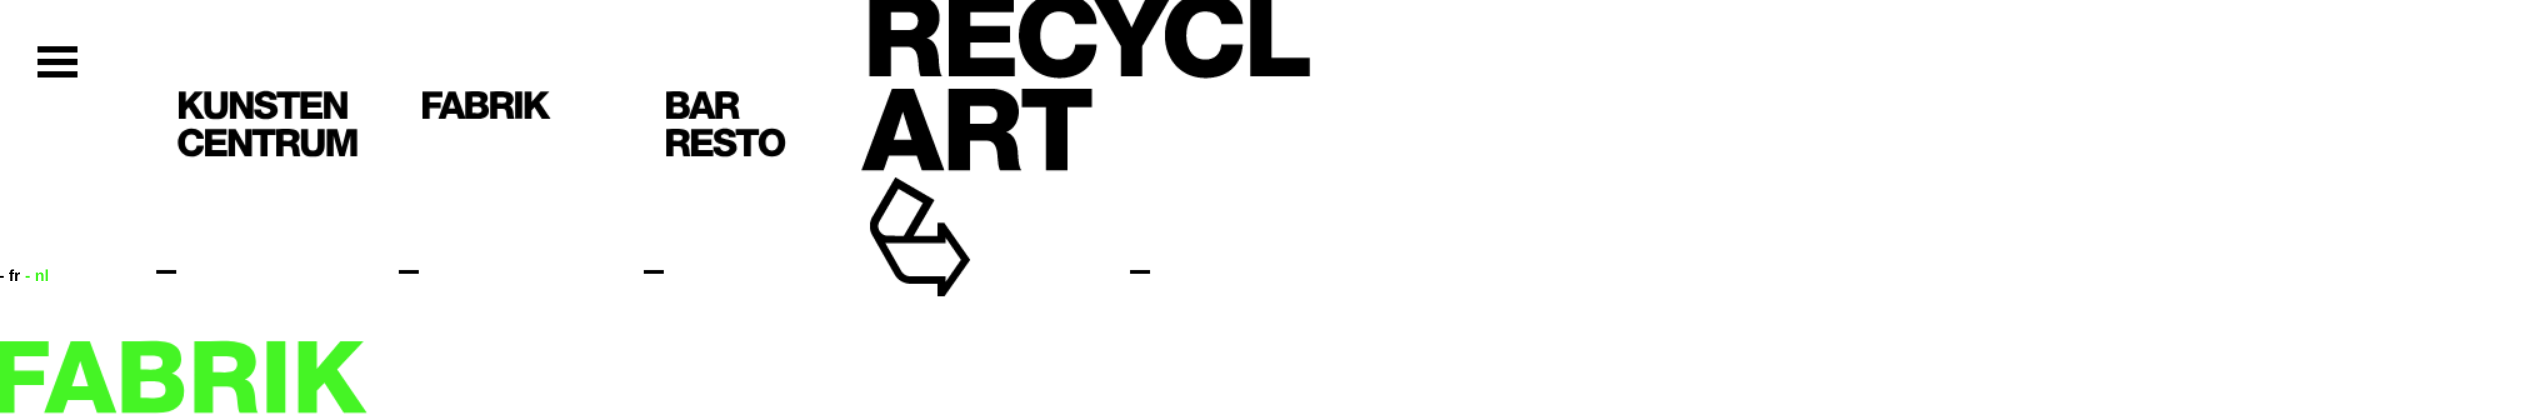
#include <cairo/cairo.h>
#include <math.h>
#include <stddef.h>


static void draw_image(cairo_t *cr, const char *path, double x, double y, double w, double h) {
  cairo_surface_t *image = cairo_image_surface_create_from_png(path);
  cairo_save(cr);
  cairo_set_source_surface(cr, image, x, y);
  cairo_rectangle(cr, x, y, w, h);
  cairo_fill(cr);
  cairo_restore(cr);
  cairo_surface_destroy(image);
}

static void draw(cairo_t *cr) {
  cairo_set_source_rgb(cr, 1, 1, 1);
  cairo_paint(cr);
  draw_image(cr, "images/1.png", 156, 0, 1155, 297);
  draw_image(cr, "images/2.png", 37, 46, 41, 32);
  draw_image(cr, "images/3.png", 178, 90, 170, 31);
  draw_image(cr, "images/4.png", 177, 127, 181, 31);
  draw_image(cr, "images/5.png", 422, 91, 130, 28);
  draw_image(cr, "images/6.png", 666, 91, 75, 28);
  draw_image(cr, "images/7.png", 666, 127, 121, 31);
  draw_image(cr, "images/8.png", 0, 340, 368, 74);
  cairo_select_font_face(cr, "Liberation Sans", CAIRO_FONT_SLANT_NORMAL, CAIRO_FONT_WEIGHT_BOLD);
  cairo_set_font_size(cr, 16);
  cairo_set_source_rgb(cr, 0, 0, 0);
  cairo_move_to(cr, -1, 281);
  cairo_show_text(cr, "- fr");
  cairo_set_source_rgb(cr, 69 / 255.0, 244 / 255.0, 37 / 255.0);
  cairo_move_to(cr, 25, 281);
  cairo_show_text(cr, "- nl");
}

int main(void) {
  cairo_surface_t *surface = cairo_image_surface_create(CAIRO_FORMAT_RGB24, 2526, 414);
  cairo_t *cr = cairo_create(surface);
  cairo_font_options_t *options = cairo_font_options_create();
  cairo_font_options_set_hint_metrics(options, CAIRO_HINT_METRICS_OFF);
  cairo_font_options_set_hint_style(options, CAIRO_HINT_STYLE_NONE);
  cairo_set_font_options(cr, options);
  cairo_set_miter_limit(cr, 4);
  draw(cr);
  cairo_surface_write_to_png(surface, "out.png");
  cairo_font_options_destroy(options);
  cairo_destroy(cr);
  cairo_surface_destroy(surface);
  return 0;
}
